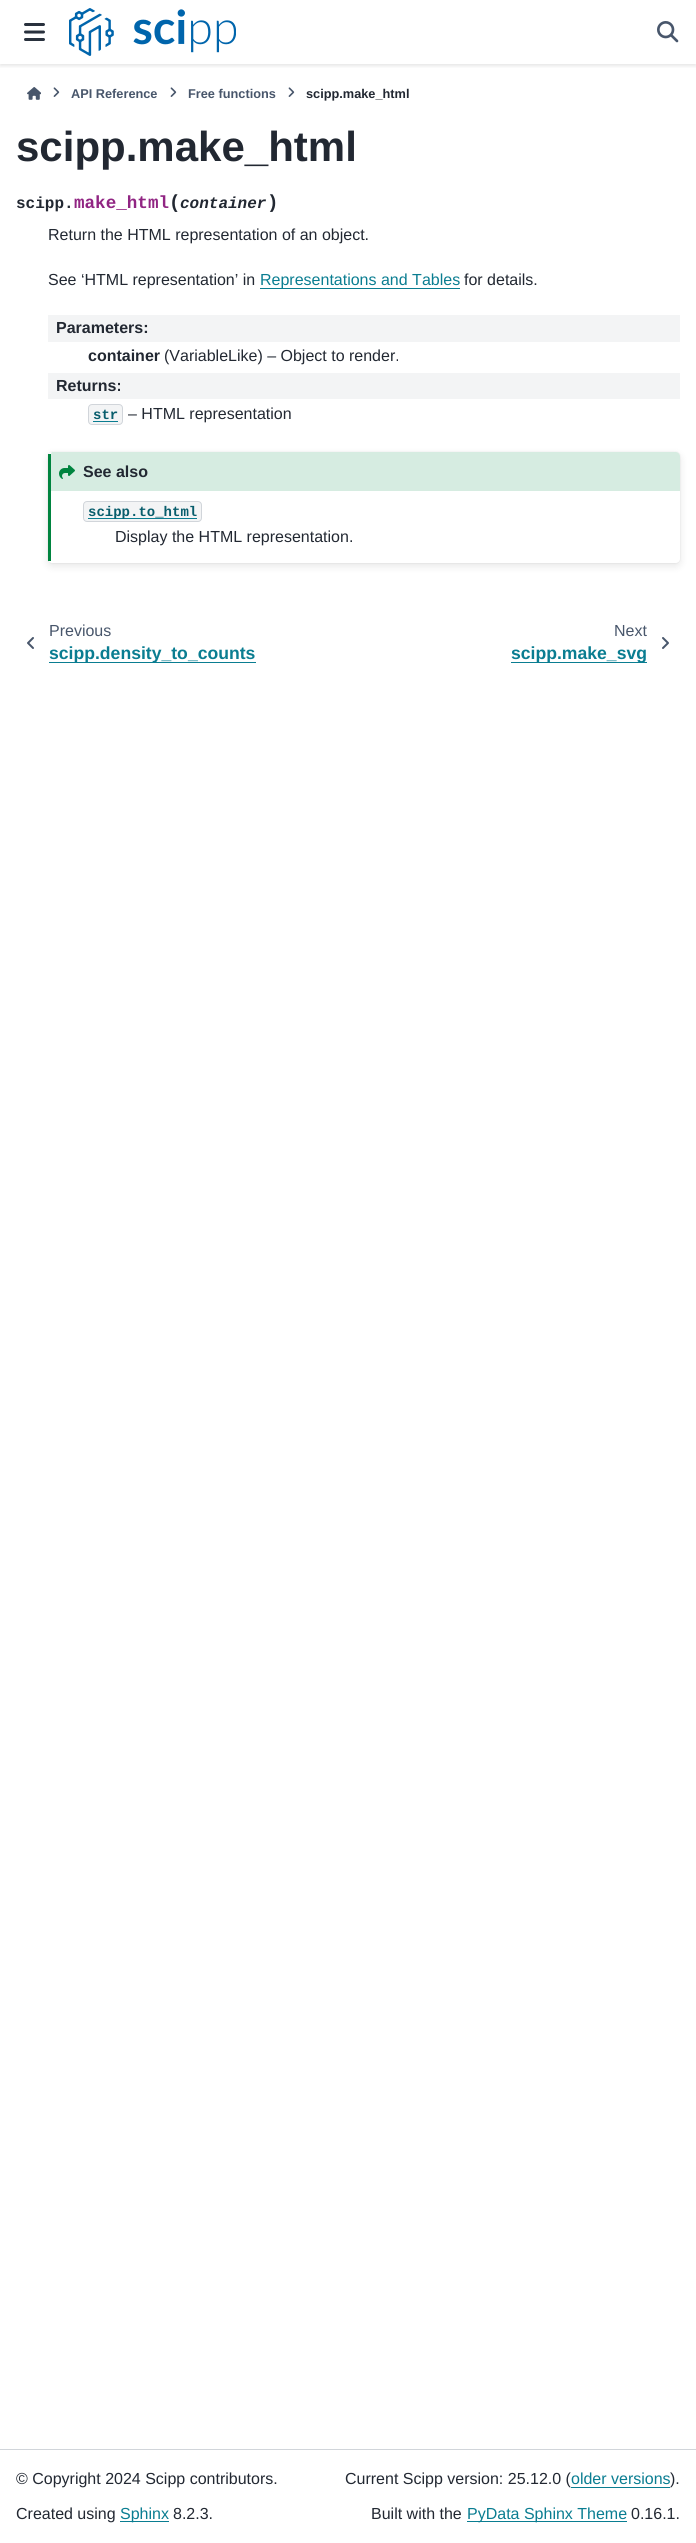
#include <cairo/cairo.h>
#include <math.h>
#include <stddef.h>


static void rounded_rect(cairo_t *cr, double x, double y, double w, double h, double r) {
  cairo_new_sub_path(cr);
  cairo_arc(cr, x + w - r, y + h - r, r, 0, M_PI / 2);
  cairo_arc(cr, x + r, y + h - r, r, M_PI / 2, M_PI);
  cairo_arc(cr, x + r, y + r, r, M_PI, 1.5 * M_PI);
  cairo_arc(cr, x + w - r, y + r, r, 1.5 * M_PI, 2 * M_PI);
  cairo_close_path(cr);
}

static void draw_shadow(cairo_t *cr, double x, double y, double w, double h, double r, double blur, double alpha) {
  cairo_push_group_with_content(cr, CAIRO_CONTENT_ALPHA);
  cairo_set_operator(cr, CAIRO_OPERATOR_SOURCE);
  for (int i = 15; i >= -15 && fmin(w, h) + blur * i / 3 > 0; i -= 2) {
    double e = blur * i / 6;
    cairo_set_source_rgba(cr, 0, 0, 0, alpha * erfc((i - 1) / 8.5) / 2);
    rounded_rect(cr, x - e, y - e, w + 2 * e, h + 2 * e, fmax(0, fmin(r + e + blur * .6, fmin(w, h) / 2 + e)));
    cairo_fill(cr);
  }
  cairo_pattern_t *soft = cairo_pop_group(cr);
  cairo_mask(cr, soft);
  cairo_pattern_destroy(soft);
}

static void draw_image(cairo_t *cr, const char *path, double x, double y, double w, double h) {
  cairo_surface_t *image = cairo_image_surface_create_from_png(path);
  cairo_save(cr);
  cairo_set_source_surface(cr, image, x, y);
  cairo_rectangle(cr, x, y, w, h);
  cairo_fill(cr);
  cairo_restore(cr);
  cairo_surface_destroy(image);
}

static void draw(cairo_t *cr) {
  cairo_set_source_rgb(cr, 1, 1, 1);
  cairo_paint(cr);
  cairo_save(cr);
  cairo_rectangle(cr, 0, 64, 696, 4);
  cairo_clip(cr);
  cairo_set_source_rgb(cr, 0, 0, 0);
  draw_shadow(cr, 0, 2, 696, 64, 0, 2, 0.1);
  cairo_restore(cr);
  draw_image(cr, "images/1.png", 24, 23, 21, 18);
  draw_image(cr, "images/2.png", 69, 8, 167, 48);
  draw_image(cr, "images/3.png", 657, 21, 22, 22);
  draw_image(cr, "images/4.png", 27, 87, 14, 13);
  draw_image(cr, "images/5.png", 53, 87, 7, 10);
  draw_image(cr, "images/5.png", 170, 87, 7, 10);
  draw_image(cr, "images/5.png", 288, 87, 7, 10);
  cairo_set_source_rgb(cr, 10 / 255.0, 125 / 255.0, 145 / 255.0);
  cairo_rectangle(cr, 260, 288, 200, 1);
  cairo_fill(cr);
  cairo_set_source_rgb(cr, 243 / 255.0, 244 / 255.0, 245 / 255.0);
  cairo_rectangle(cr, 48, 315, 632, 27);
  cairo_fill(cr);
  cairo_rectangle(cr, 48, 373, 632, 26);
  cairo_fill(cr);
  rounded_rect(cr, 88.5, 404.5, 34, 20, 3.5);
  cairo_fill_preserve(cr);
  cairo_set_source_rgb(cr, 209 / 255.0, 213 / 255.0, 218 / 255.0);
  cairo_set_line_width(cr, 1);
  cairo_stroke(cr);
  cairo_set_source_rgb(cr, 10 / 255.0, 125 / 255.0, 145 / 255.0);
  cairo_rectangle(cr, 93, 421, 25, 1);
  cairo_fill(cr);
  cairo_set_source_rgb(cr, 0, 0, 0);
  draw_shadow(cr, 48, 452, 632, 111, 4, 0.5, 0.1);
  draw_shadow(cr, 48, 455, 632, 111, 4, 4, 0.1);
  cairo_set_source_rgb(cr, 1, 1, 1);
  rounded_rect(cr, 48, 452, 632, 111, 4);
  cairo_fill(cr);
  cairo_set_source_rgb(cr, 0, 132 / 255.0, 63 / 255.0);
  cairo_rectangle(cr, 48, 454, 3, 107);
  cairo_fill(cr);
  cairo_set_source_rgb(cr, 214 / 255.0, 236 / 255.0, 225 / 255.0);
  cairo_new_path(cr);
  cairo_move_to(cr, 52, 452);
  cairo_curve_to(cr, 51, 452, 51, 454, 51, 456);
  cairo_line_to(cr, 51, 491);
  cairo_line_to(cr, 680, 491);
  cairo_line_to(cr, 680, 456);
  cairo_curve_to(cr, 680, 454, 678, 452, 676, 452);
  cairo_close_path(cr);
  cairo_fill(cr);
  draw_image(cr, "images/6.png", 59, 465, 16, 14);
  cairo_set_source_rgb(cr, 243 / 255.0, 244 / 255.0, 245 / 255.0);
  rounded_rect(cr, 83.5, 501.5, 118, 20, 3.5);
  cairo_fill_preserve(cr);
  cairo_set_source_rgb(cr, 209 / 255.0, 213 / 255.0, 218 / 255.0);
  cairo_stroke(cr);
  cairo_set_source_rgb(cr, 10 / 255.0, 125 / 255.0, 145 / 255.0);
  cairo_rectangle(cr, 88, 518, 109, 1);
  cairo_fill(cr);
  draw_image(cr, "images/7.png", 27, 637, 7, 12);
  cairo_rectangle(cr, 49, 662, 207, 1);
  cairo_fill(cr);
  cairo_rectangle(cr, 511, 662, 136, 1);
  cairo_fill(cr);
  draw_image(cr, "images/8.png", 662, 637, 7, 12);
  cairo_set_source_rgb(cr, 209 / 255.0, 213 / 255.0, 218 / 255.0);
  cairo_rectangle(cr, 0, 2449, 696, 1);
  cairo_fill(cr);
  cairo_set_source_rgb(cr, 10 / 255.0, 125 / 255.0, 145 / 255.0);
  cairo_rectangle(cr, 120, 2521, 49, 1);
  cairo_fill(cr);
  cairo_rectangle(cr, 571, 2487, 99, 1);
  cairo_fill(cr);
  cairo_rectangle(cr, 467, 2521, 160, 1);
  cairo_fill(cr);
  cairo_select_font_face(cr, "Liberation Sans", CAIRO_FONT_SLANT_NORMAL, CAIRO_FONT_WEIGHT_BOLD);
  cairo_set_font_size(cr, 12.75);
  cairo_set_source_rgb(cr, 72 / 255.0, 86 / 255.0, 107 / 255.0);
  cairo_move_to(cr, 71, 98);
  cairo_show_text(cr, "API Reference");
  cairo_move_to(cr, 188, 98);
  cairo_show_text(cr, "Free functions");
  cairo_set_source_rgb(cr, 34 / 255.0, 40 / 255.0, 50 / 255.0);
  cairo_move_to(cr, 306, 98);
  cairo_show_text(cr, "scipp.make_html");
  cairo_set_font_size(cr, 42);
  cairo_move_to(cr, 16, 161);
  cairo_show_text(cr, "scipp.make_html");
  cairo_select_font_face(cr, "Liberation Mono", CAIRO_FONT_SLANT_NORMAL, CAIRO_FONT_WEIGHT_BOLD);
  cairo_set_font_size(cr, 16);
  cairo_move_to(cr, 16, 208);
  cairo_show_text(cr, "scipp.");
  cairo_set_font_size(cr, 17.6);
  cairo_set_source_rgb(cr, 145 / 255.0, 37 / 255.0, 131 / 255.0);
  cairo_move_to(cr, 74, 208);
  cairo_show_text(cr, "make_html");
  cairo_set_font_size(cr, 19);
  cairo_set_source_rgb(cr, 34 / 255.0, 40 / 255.0, 50 / 255.0);
  cairo_move_to(cr, 169, 208);
  cairo_show_text(cr, "(");
  cairo_select_font_face(cr, "Liberation Mono", CAIRO_FONT_SLANT_ITALIC, CAIRO_FONT_WEIGHT_BOLD);
  cairo_set_font_size(cr, 16);
  cairo_move_to(cr, 180, 208);
  cairo_show_text(cr, "container");
  cairo_select_font_face(cr, "Liberation Mono", CAIRO_FONT_SLANT_NORMAL, CAIRO_FONT_WEIGHT_BOLD);
  cairo_set_font_size(cr, 19);
  cairo_move_to(cr, 267, 208);
  cairo_show_text(cr, ")");
  cairo_select_font_face(cr, "Liberation Sans", CAIRO_FONT_SLANT_NORMAL, CAIRO_FONT_WEIGHT_NORMAL);
  cairo_set_font_size(cr, 16);
  cairo_move_to(cr, 48, 240);
  cairo_show_text(cr, "Return the HTML representation of an object.");
  cairo_move_to(cr, 48, 285);
  cairo_show_text(cr, "See ‘HTML representation’ in");
  cairo_set_source_rgb(cr, 10 / 255.0, 125 / 255.0, 145 / 255.0);
  cairo_move_to(cr, 260, 285);
  cairo_show_text(cr, "Representations and Tables");
  cairo_set_source_rgb(cr, 34 / 255.0, 40 / 255.0, 50 / 255.0);
  cairo_move_to(cr, 464, 285);
  cairo_show_text(cr, "for details.");
  cairo_select_font_face(cr, "Liberation Sans", CAIRO_FONT_SLANT_NORMAL, CAIRO_FONT_WEIGHT_BOLD);
  cairo_move_to(cr, 56, 333);
  cairo_show_text(cr, "Parameters:");
  cairo_move_to(cr, 88, 361);
  cairo_show_text(cr, "container");
  cairo_select_font_face(cr, "Liberation Sans", CAIRO_FONT_SLANT_NORMAL, CAIRO_FONT_WEIGHT_NORMAL);
  cairo_move_to(cr, 164, 361);
  cairo_show_text(cr, "(VariableLike) – Object to render.");
  cairo_select_font_face(cr, "Liberation Sans", CAIRO_FONT_SLANT_NORMAL, CAIRO_FONT_WEIGHT_BOLD);
  cairo_move_to(cr, 56, 391);
  cairo_show_text(cr, "Returns:");
  cairo_select_font_face(cr, "Liberation Mono", CAIRO_FONT_SLANT_NORMAL, CAIRO_FONT_WEIGHT_BOLD);
  cairo_set_font_size(cr, 14);
  cairo_set_source_rgb(cr, 8 / 255.0, 93 / 255.0, 108 / 255.0);
  cairo_move_to(cr, 93, 419);
  cairo_show_text(cr, "str");
  cairo_select_font_face(cr, "Liberation Sans", CAIRO_FONT_SLANT_NORMAL, CAIRO_FONT_WEIGHT_NORMAL);
  cairo_set_font_size(cr, 16);
  cairo_set_source_rgb(cr, 34 / 255.0, 40 / 255.0, 50 / 255.0);
  cairo_move_to(cr, 128, 419);
  cairo_show_text(cr, "– HTML representation");
  cairo_select_font_face(cr, "Liberation Sans", CAIRO_FONT_SLANT_NORMAL, CAIRO_FONT_WEIGHT_BOLD);
  cairo_move_to(cr, 83, 477);
  cairo_show_text(cr, "See also");
  cairo_select_font_face(cr, "Liberation Mono", CAIRO_FONT_SLANT_NORMAL, CAIRO_FONT_WEIGHT_BOLD);
  cairo_set_font_size(cr, 14);
  cairo_set_source_rgb(cr, 8 / 255.0, 93 / 255.0, 108 / 255.0);
  cairo_move_to(cr, 88, 516);
  cairo_show_text(cr, "scipp.to_html");
  cairo_select_font_face(cr, "Liberation Sans", CAIRO_FONT_SLANT_NORMAL, CAIRO_FONT_WEIGHT_NORMAL);
  cairo_set_font_size(cr, 16);
  cairo_set_source_rgb(cr, 34 / 255.0, 40 / 255.0, 50 / 255.0);
  cairo_move_to(cr, 115, 542);
  cairo_show_text(cr, "Display the HTML representation.");
  cairo_set_source_rgb(cr, 72 / 255.0, 86 / 255.0, 107 / 255.0);
  cairo_move_to(cr, 49, 636);
  cairo_show_text(cr, "Previous");
  cairo_select_font_face(cr, "Liberation Sans", CAIRO_FONT_SLANT_NORMAL, CAIRO_FONT_WEIGHT_BOLD);
  cairo_set_font_size(cr, 17.6);
  cairo_set_source_rgb(cr, 10 / 255.0, 125 / 255.0, 145 / 255.0);
  cairo_move_to(cr, 49, 659);
  cairo_show_text(cr, "scipp.density_to_counts");
  cairo_select_font_face(cr, "Liberation Sans", CAIRO_FONT_SLANT_NORMAL, CAIRO_FONT_WEIGHT_NORMAL);
  cairo_set_font_size(cr, 16);
  cairo_set_source_rgb(cr, 72 / 255.0, 86 / 255.0, 107 / 255.0);
  cairo_move_to(cr, 614, 636);
  cairo_show_text(cr, "Next");
  cairo_select_font_face(cr, "Liberation Sans", CAIRO_FONT_SLANT_NORMAL, CAIRO_FONT_WEIGHT_BOLD);
  cairo_set_font_size(cr, 17.6);
  cairo_set_source_rgb(cr, 10 / 255.0, 125 / 255.0, 145 / 255.0);
  cairo_move_to(cr, 511, 659);
  cairo_show_text(cr, "scipp.make_svg");
  cairo_select_font_face(cr, "Liberation Sans", CAIRO_FONT_SLANT_NORMAL, CAIRO_FONT_WEIGHT_NORMAL);
  cairo_set_font_size(cr, 16);
  cairo_set_source_rgb(cr, 34 / 255.0, 40 / 255.0, 50 / 255.0);
  cairo_move_to(cr, 16, 2484);
  cairo_show_text(cr, "© Copyright 2024 Scipp contributors.");
  cairo_move_to(cr, 16, 2519);
  cairo_show_text(cr, "Created using");
  cairo_set_source_rgb(cr, 10 / 255.0, 125 / 255.0, 145 / 255.0);
  cairo_move_to(cr, 120, 2519);
  cairo_show_text(cr, "Sphinx");
  cairo_set_source_rgb(cr, 34 / 255.0, 40 / 255.0, 50 / 255.0);
  cairo_move_to(cr, 173, 2519);
  cairo_show_text(cr, "8.2.3.");
  cairo_move_to(cr, 345, 2484);
  cairo_show_text(cr, "Current Scipp version: 25.12.0 (");
  cairo_set_source_rgb(cr, 10 / 255.0, 125 / 255.0, 145 / 255.0);
  cairo_move_to(cr, 571, 2484);
  cairo_show_text(cr, "older versions");
  cairo_set_source_rgb(cr, 34 / 255.0, 40 / 255.0, 50 / 255.0);
  cairo_move_to(cr, 670, 2484);
  cairo_show_text(cr, ").");
  cairo_move_to(cr, 371, 2519);
  cairo_show_text(cr, "Built with the");
  cairo_set_source_rgb(cr, 10 / 255.0, 125 / 255.0, 145 / 255.0);
  cairo_move_to(cr, 467, 2519);
  cairo_show_text(cr, "PyData Sphinx Theme");
  cairo_set_source_rgb(cr, 34 / 255.0, 40 / 255.0, 50 / 255.0);
  cairo_move_to(cr, 631, 2519);
  cairo_show_text(cr, "0.16.1.");
}

int main(void) {
  cairo_surface_t *surface = cairo_image_surface_create(CAIRO_FORMAT_RGB24, 696, 2543);
  cairo_t *cr = cairo_create(surface);
  cairo_font_options_t *options = cairo_font_options_create();
  cairo_font_options_set_hint_metrics(options, CAIRO_HINT_METRICS_OFF);
  cairo_font_options_set_hint_style(options, CAIRO_HINT_STYLE_NONE);
  cairo_set_font_options(cr, options);
  cairo_set_miter_limit(cr, 4);
  draw(cr);
  cairo_surface_write_to_png(surface, "out.png");
  cairo_font_options_destroy(options);
  cairo_destroy(cr);
  cairo_surface_destroy(surface);
  return 0;
}
